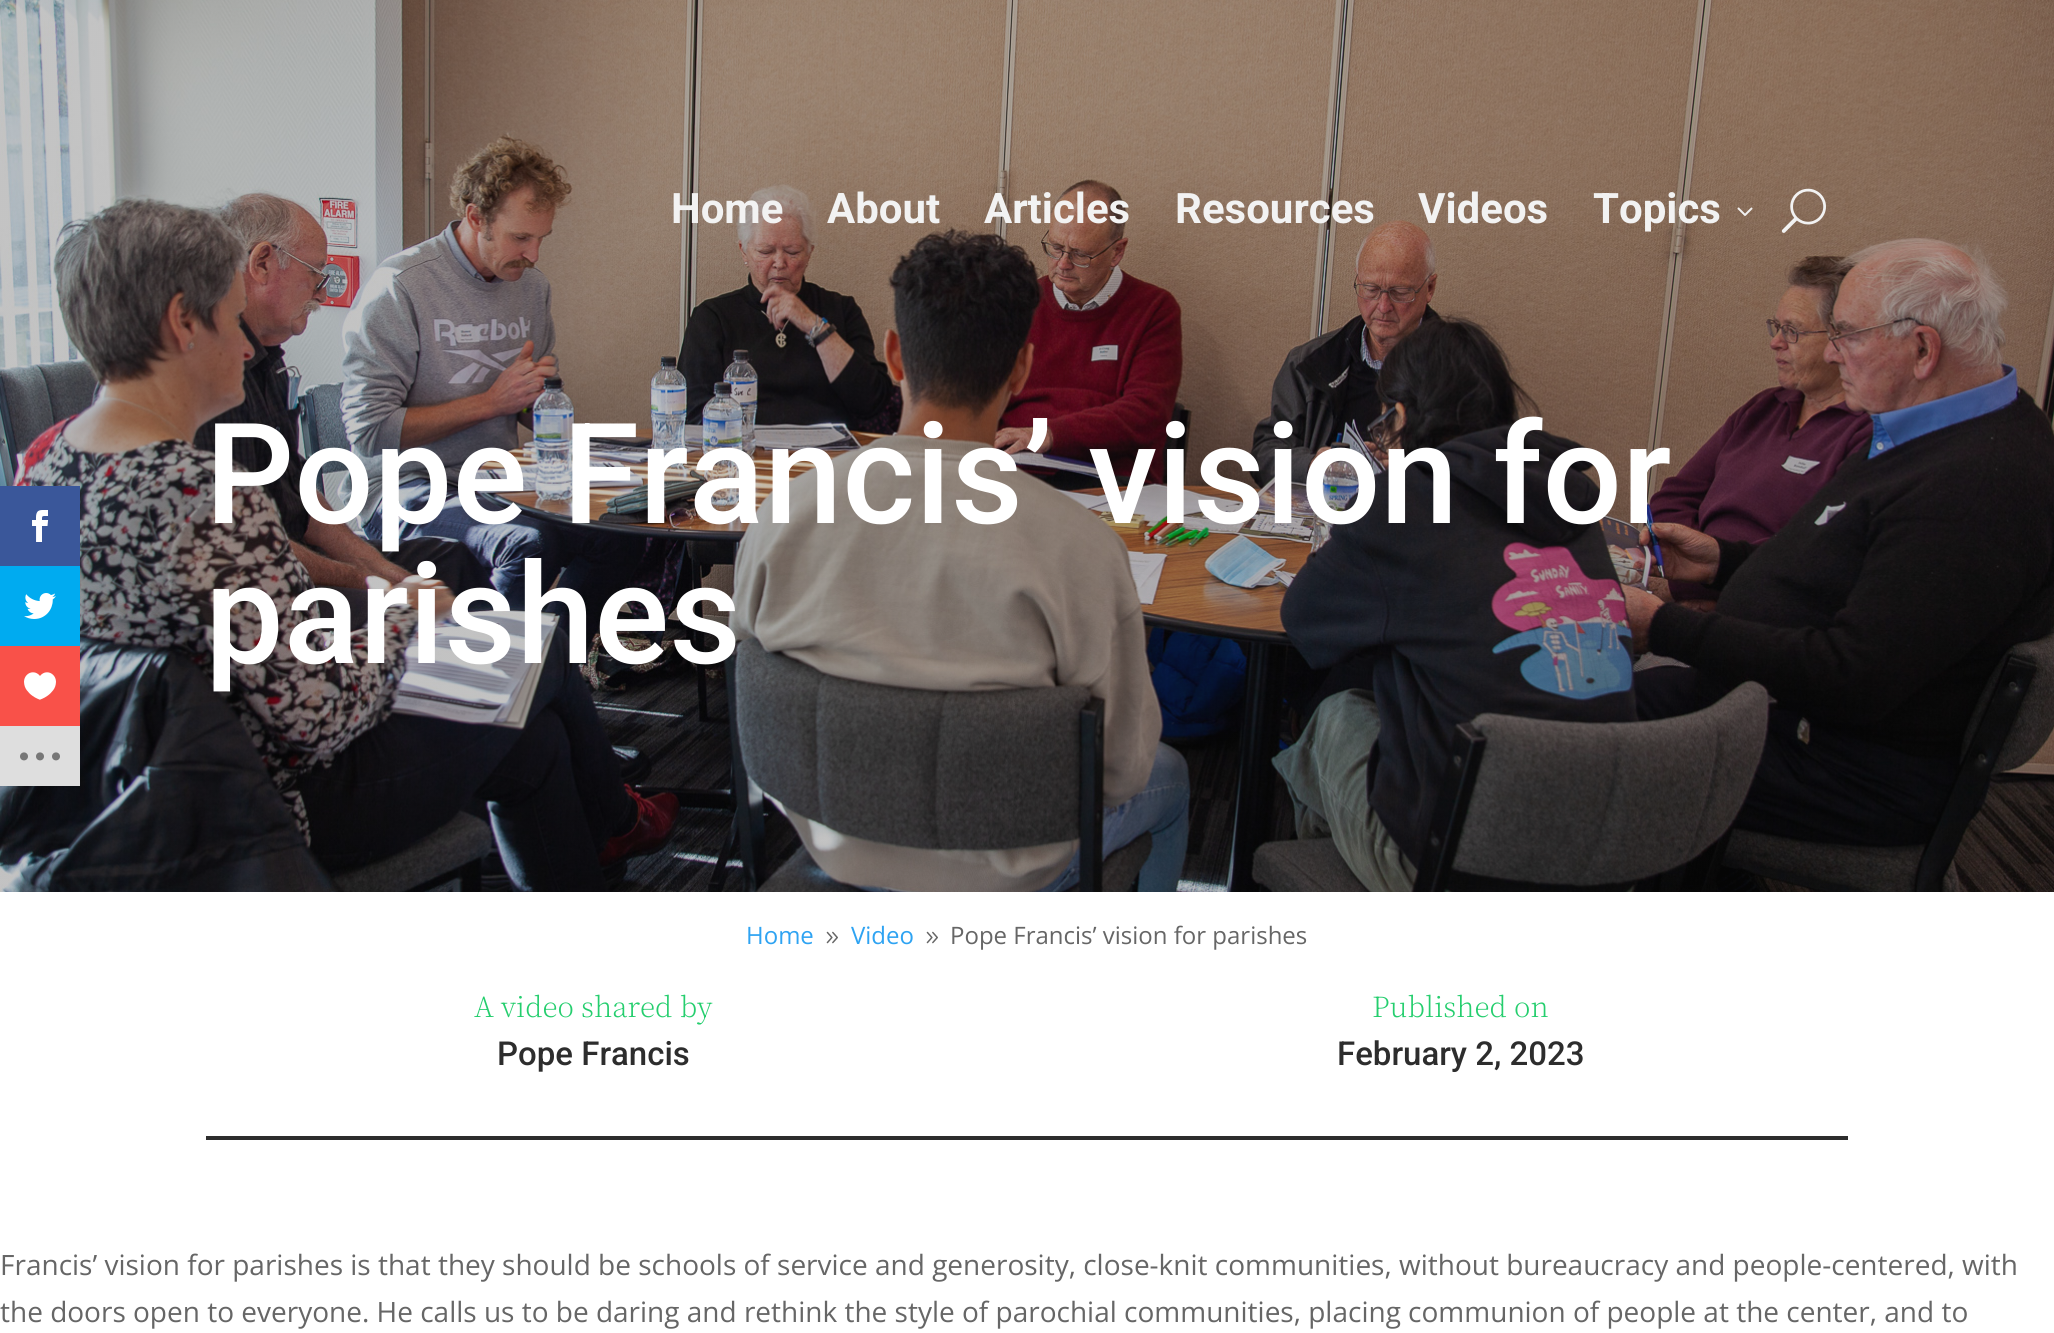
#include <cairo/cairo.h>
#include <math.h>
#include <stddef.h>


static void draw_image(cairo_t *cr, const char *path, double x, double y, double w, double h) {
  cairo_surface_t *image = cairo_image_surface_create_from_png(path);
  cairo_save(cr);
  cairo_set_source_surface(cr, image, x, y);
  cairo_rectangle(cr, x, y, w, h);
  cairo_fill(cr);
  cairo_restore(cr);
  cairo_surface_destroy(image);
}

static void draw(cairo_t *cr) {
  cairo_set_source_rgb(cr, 1, 1, 1);
  cairo_paint(cr);
  draw_image(cr, "images/1.png", 0, 0, 2054, 892);
  draw_image(cr, "images/2.png", 1737, 207, 16, 9);
  draw_image(cr, "images/3.png", 1781, 188, 45, 45);
  draw_image(cr, "images/4.png", 826, 931, 12, 13);
  draw_image(cr, "images/4.png", 926, 931, 12, 13);
  cairo_set_source_rgb(cr, 45 / 255.0, 45 / 255.0, 45 / 255.0);
  cairo_rectangle(cr, 206, 1136, 1642, 4);
  cairo_fill(cr);
  cairo_set_source_rgb(cr, 58 / 255.0, 87 / 255.0, 154 / 255.0);
  cairo_rectangle(cr, 0, 486, 80, 80);
  cairo_fill(cr);
  draw_image(cr, "images/5.png", 32, 510, 17, 32);
  cairo_set_source_rgb(cr, 0, 171 / 255.0, 240 / 255.0);
  cairo_rectangle(cr, 0, 566, 80, 80);
  cairo_fill(cr);
  draw_image(cr, "images/6.png", 24, 593, 32, 26);
  cairo_set_source_rgb(cr, 249 / 255.0, 81 / 255.0, 73 / 255.0);
  cairo_rectangle(cr, 0, 646, 80, 80);
  cairo_fill(cr);
  draw_image(cr, "images/7.png", 24, 672, 32, 28);
  cairo_set_source_rgb(cr, 222 / 255.0, 222 / 255.0, 222 / 255.0);
  cairo_rectangle(cr, 0, 726, 80, 60);
  cairo_fill(cr);
  draw_image(cr, "images/8.png", 20, 752, 40, 9);
  cairo_select_font_face(cr, "Roboto", CAIRO_FONT_SLANT_NORMAL, CAIRO_FONT_WEIGHT_BOLD);
  cairo_set_font_size(cr, 42);
  cairo_set_source_rgb(cr, 242 / 255.0, 242 / 255.0, 242 / 255.0);
  cairo_move_to(cr, 671, 223);
  cairo_show_text(cr, "Home");
  cairo_move_to(cr, 827, 223);
  cairo_show_text(cr, "About");
  cairo_move_to(cr, 984, 223);
  cairo_show_text(cr, "Articles");
  cairo_move_to(cr, 1175, 223);
  cairo_show_text(cr, "Resources");
  cairo_move_to(cr, 1418, 223);
  cairo_show_text(cr, "Videos");
  cairo_move_to(cr, 1593, 223);
  cairo_show_text(cr, "Topics");
  cairo_select_font_face(cr, "Roboto Medium", CAIRO_FONT_SLANT_NORMAL, CAIRO_FONT_WEIGHT_NORMAL);
  cairo_set_font_size(cr, 140);
  cairo_set_source_rgb(cr, 1, 1, 1);
  cairo_move_to(cr, 205, 523);
  cairo_show_text(cr, "Pope Francis’ vision for");
  cairo_move_to(cr, 205, 663);
  cairo_show_text(cr, "parishes");
  cairo_select_font_face(cr, "Open Sans", CAIRO_FONT_SLANT_NORMAL, CAIRO_FONT_WEIGHT_NORMAL);
  cairo_set_font_size(cr, 24);
  cairo_set_source_rgb(cr, 46 / 255.0, 163 / 255.0, 242 / 255.0);
  cairo_move_to(cr, 746, 944);
  cairo_show_text(cr, "Home");
  cairo_move_to(cr, 851, 944);
  cairo_show_text(cr, "Video");
  cairo_set_source_rgb(cr, 102 / 255.0, 102 / 255.0, 102 / 255.0);
  cairo_move_to(cr, 950, 944);
  cairo_show_text(cr, "Pope Francis’ vision for parishes");
  cairo_select_font_face(cr, "Noto Serif JP ExtraLight", CAIRO_FONT_SLANT_NORMAL, CAIRO_FONT_WEIGHT_NORMAL);
  cairo_set_font_size(cr, 28);
  cairo_set_source_rgb(cr, 37 / 255.0, 206 / 255.0, 110 / 255.0);
  cairo_move_to(cr, 474, 1017);
  cairo_show_text(cr, "A video shared by");
  cairo_select_font_face(cr, "Roboto Medium", CAIRO_FONT_SLANT_NORMAL, CAIRO_FONT_WEIGHT_NORMAL);
  cairo_set_font_size(cr, 33);
  cairo_set_source_rgb(cr, 45 / 255.0, 45 / 255.0, 45 / 255.0);
  cairo_move_to(cr, 497, 1065);
  cairo_show_text(cr, "Pope Francis");
  cairo_select_font_face(cr, "Noto Serif JP ExtraLight", CAIRO_FONT_SLANT_NORMAL, CAIRO_FONT_WEIGHT_NORMAL);
  cairo_set_font_size(cr, 28);
  cairo_set_source_rgb(cr, 37 / 255.0, 206 / 255.0, 110 / 255.0);
  cairo_move_to(cr, 1372, 1017);
  cairo_show_text(cr, "Published on");
  cairo_select_font_face(cr, "Roboto Medium", CAIRO_FONT_SLANT_NORMAL, CAIRO_FONT_WEIGHT_NORMAL);
  cairo_set_font_size(cr, 33);
  cairo_set_source_rgb(cr, 45 / 255.0, 45 / 255.0, 45 / 255.0);
  cairo_move_to(cr, 1337, 1065);
  cairo_show_text(cr, "February 2, 2023");
  cairo_select_font_face(cr, "Open Sans", CAIRO_FONT_SLANT_NORMAL, CAIRO_FONT_WEIGHT_NORMAL);
  cairo_set_font_size(cr, 28);
  cairo_set_source_rgb(cr, 102 / 255.0, 102 / 255.0, 102 / 255.0);
  cairo_move_to(cr, 0, 1275);
  cairo_show_text(cr, "Francis’ vision for parishes is that they should be schools of service and generosity, close-knit communities, without bureaucracy and people-centered, with");
  cairo_move_to(cr, 0, 1322);
  cairo_show_text(cr, "the doors open to everyone. He calls us to be daring and rethink the style of parochial communities, placing communion of people at the center, and to");
}

int main(void) {
  cairo_surface_t *surface = cairo_image_surface_create(CAIRO_FORMAT_RGB24, 2054, 1333);
  cairo_t *cr = cairo_create(surface);
  cairo_font_options_t *options = cairo_font_options_create();
  cairo_font_options_set_hint_metrics(options, CAIRO_HINT_METRICS_OFF);
  cairo_font_options_set_hint_style(options, CAIRO_HINT_STYLE_NONE);
  cairo_set_font_options(cr, options);
  cairo_set_miter_limit(cr, 4);
  draw(cr);
  cairo_surface_write_to_png(surface, "out.png");
  cairo_font_options_destroy(options);
  cairo_destroy(cr);
  cairo_surface_destroy(surface);
  return 0;
}
